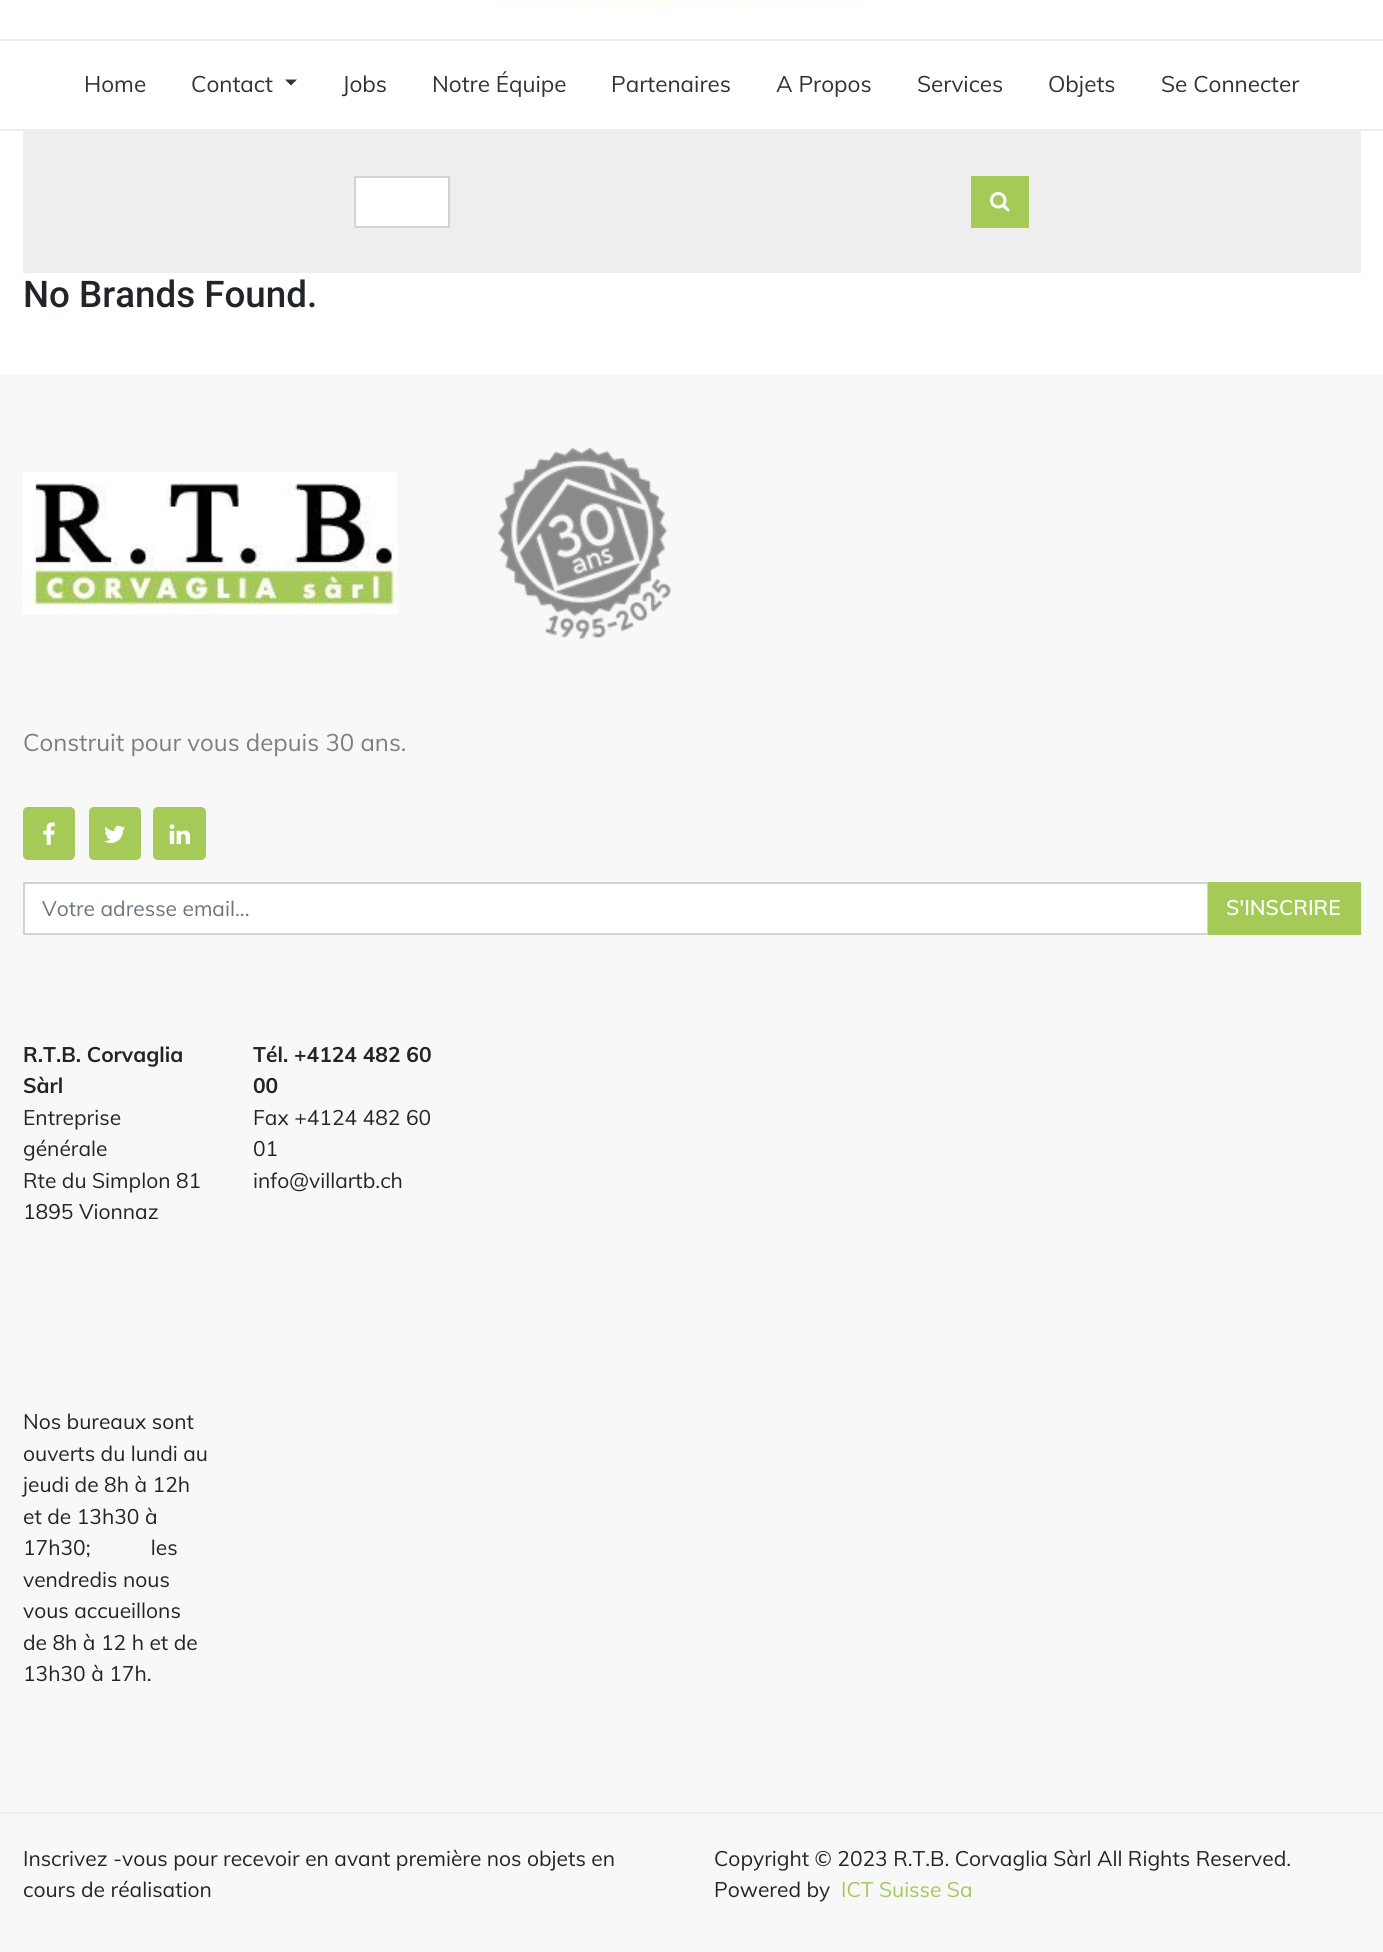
#include <cairo/cairo.h>
#include <math.h>
#include <stddef.h>


static void rounded_rect(cairo_t *cr, double x, double y, double w, double h, double r) {
  cairo_new_sub_path(cr);
  cairo_arc(cr, x + w - r, y + h - r, r, 0, M_PI / 2);
  cairo_arc(cr, x + r, y + h - r, r, M_PI / 2, M_PI);
  cairo_arc(cr, x + r, y + r, r, M_PI, 1.5 * M_PI);
  cairo_arc(cr, x + w - r, y + r, r, 1.5 * M_PI, 2 * M_PI);
  cairo_close_path(cr);
}

static void draw_image(cairo_t *cr, const char *path, double x, double y, double w, double h) {
  cairo_surface_t *image = cairo_image_surface_create_from_png(path);
  cairo_save(cr);
  cairo_set_source_surface(cr, image, x, y);
  cairo_rectangle(cr, x, y, w, h);
  cairo_fill(cr);
  cairo_restore(cr);
  cairo_surface_destroy(image);
}

static void draw(cairo_t *cr) {
  cairo_set_source_rgb(cr, 1, 1, 1);
  cairo_paint(cr);
  draw_image(cr, "images/1.png", 499, 0, 368, 9);
  cairo_set_source_rgb(cr, 238 / 255.0, 238 / 255.0, 238 / 255.0);
  cairo_rectangle(cr, 0, 39, 1383, 2);
  cairo_fill(cr);
  cairo_rectangle(cr, 0, 129, 1383, 2);
  cairo_fill(cr);
  cairo_set_source_rgb(cr, 50 / 255.0, 50 / 255.0, 50 / 255.0);
  cairo_new_path(cr);
  cairo_move_to(cr, 285, 79.5);
  cairo_line_to(cr, 297, 79.5);
  cairo_line_to(cr, 291, 85.5);
  cairo_close_path(cr);
  cairo_fill(cr);
  cairo_set_source_rgb(cr, 238 / 255.0, 238 / 255.0, 238 / 255.0);
  cairo_rectangle(cr, 23, 131, 1338, 142);
  cairo_fill(cr);
  cairo_set_source_rgb(cr, 1, 1, 1);
  cairo_rectangle(cr, 355, 177, 94, 50);
  cairo_fill_preserve(cr);
  cairo_set_source_rgb(cr, 206 / 255.0, 212 / 255.0, 218 / 255.0);
  cairo_stroke(cr);
  cairo_set_source_rgb(cr, 165 / 255.0, 202 / 255.0, 88 / 255.0);
  cairo_rectangle(cr, 971, 176, 58, 52);
  cairo_fill(cr);
  draw_image(cr, "images/2.png", 990, 192, 20, 20);
  cairo_set_source_rgb(cr, 248 / 255.0, 248 / 255.0, 248 / 255.0);
  cairo_rectangle(cr, 0, 374, 1383, 1438);
  cairo_fill(cr);
  draw_image(cr, "images/3.png", 23, 472, 374, 143);
  draw_image(cr, "images/4.png", 498, 448, 173, 191);
  cairo_set_source_rgb(cr, 165 / 255.0, 202 / 255.0, 88 / 255.0);
  rounded_rect(cr, 23, 807, 52, 53, 5);
  cairo_fill(cr);
  draw_image(cr, "images/5.png", 43, 822, 12, 23);
  rounded_rect(cr, 89, 807, 52, 53, 5);
  cairo_fill(cr);
  draw_image(cr, "images/6.png", 104, 825, 21, 18);
  rounded_rect(cr, 153, 807, 53, 53, 5);
  cairo_fill(cr);
  draw_image(cr, "images/7.png", 169, 824, 22, 21);
  cairo_set_source_rgb(cr, 1, 1, 1);
  cairo_rectangle(cr, 24, 883, 1184, 51);
  cairo_fill_preserve(cr);
  cairo_set_source_rgb(cr, 206 / 255.0, 212 / 255.0, 218 / 255.0);
  cairo_stroke(cr);
  cairo_set_source_rgb(cr, 165 / 255.0, 202 / 255.0, 88 / 255.0);
  cairo_rectangle(cr, 1208, 882, 153, 53);
  cairo_fill(cr);
  cairo_set_source_rgb(cr, 248 / 255.0, 248 / 255.0, 248 / 255.0);
  cairo_rectangle(cr, 0, 1814, 1383, 138);
  cairo_fill(cr);
  cairo_set_source_rgb(cr, 238 / 255.0, 238 / 255.0, 238 / 255.0);
  cairo_rectangle(cr, 0, 1812, 1383, 2);
  cairo_fill(cr);
  cairo_select_font_face(cr, "Muli", CAIRO_FONT_SLANT_NORMAL, CAIRO_FONT_WEIGHT_NORMAL);
  cairo_set_font_size(cr, 22.5);
  cairo_set_source_rgb(cr, 50 / 255.0, 50 / 255.0, 50 / 255.0);
  cairo_move_to(cr, 84, 92);
  cairo_show_text(cr, "Home");
  cairo_move_to(cr, 191, 92);
  cairo_show_text(cr, "Contact");
  cairo_move_to(cr, 342, 92);
  cairo_show_text(cr, "Jobs");
  cairo_move_to(cr, 432, 92);
  cairo_show_text(cr, "Notre Équipe");
  cairo_move_to(cr, 611, 92);
  cairo_show_text(cr, "Partenaires");
  cairo_move_to(cr, 776, 92);
  cairo_show_text(cr, "A Propos");
  cairo_move_to(cr, 917, 92);
  cairo_show_text(cr, "Services");
  cairo_move_to(cr, 1048, 92);
  cairo_show_text(cr, "Objets");
  cairo_move_to(cr, 1161, 92);
  cairo_show_text(cr, "Se Connecter");
  cairo_select_font_face(cr, "Roboto Medium", CAIRO_FONT_SLANT_NORMAL, CAIRO_FONT_WEIGHT_NORMAL);
  cairo_set_font_size(cr, 36.75);
  cairo_set_source_rgb(cr, 33 / 255.0, 37 / 255.0, 41 / 255.0);
  cairo_move_to(cr, 23, 307);
  cairo_show_text(cr, "No Brands Found.");
  cairo_select_font_face(cr, "Muli", CAIRO_FONT_SLANT_NORMAL, CAIRO_FONT_WEIGHT_NORMAL);
  cairo_set_font_size(cr, 24);
  cairo_set_source_rgb(cr, 126 / 255.0, 126 / 255.0, 126 / 255.0);
  cairo_move_to(cr, 23, 751);
  cairo_show_text(cr, "Construit pour vous depuis 30 ans.");
  cairo_set_font_size(cr, 21);
  cairo_set_source_rgb(cr, 108 / 255.0, 117 / 255.0, 125 / 255.0);
  cairo_move_to(cr, 42, 916);
  cairo_show_text(cr, "Votre adresse email...");
  cairo_select_font_face(cr, "Muli SemiBold", CAIRO_FONT_SLANT_NORMAL, CAIRO_FONT_WEIGHT_NORMAL);
  cairo_set_source_rgb(cr, 1, 1, 1);
  cairo_move_to(cr, 1226, 915);
  cairo_show_text(cr, "S'INSCRIRE");
  cairo_select_font_face(cr, "Muli", CAIRO_FONT_SLANT_NORMAL, CAIRO_FONT_WEIGHT_BOLD);
  cairo_set_source_rgb(cr, 33 / 255.0, 37 / 255.0, 41 / 255.0);
  cairo_move_to(cr, 23, 1062);
  cairo_show_text(cr, "R.T.B. Corvaglia");
  cairo_move_to(cr, 23, 1093);
  cairo_show_text(cr, "Sàrl");
  cairo_select_font_face(cr, "Muli", CAIRO_FONT_SLANT_NORMAL, CAIRO_FONT_WEIGHT_NORMAL);
  cairo_move_to(cr, 23, 1125);
  cairo_show_text(cr, "Entreprise");
  cairo_move_to(cr, 23, 1156);
  cairo_show_text(cr, "générale");
  cairo_move_to(cr, 23, 1188);
  cairo_show_text(cr, "Rte du Simplon 81");
  cairo_move_to(cr, 23, 1219);
  cairo_show_text(cr, "1895 Vionnaz");
  cairo_select_font_face(cr, "Muli", CAIRO_FONT_SLANT_NORMAL, CAIRO_FONT_WEIGHT_BOLD);
  cairo_move_to(cr, 253, 1062);
  cairo_show_text(cr, "Tél. +4124 482 60");
  cairo_move_to(cr, 253, 1093);
  cairo_show_text(cr, "00");
  cairo_select_font_face(cr, "Muli", CAIRO_FONT_SLANT_NORMAL, CAIRO_FONT_WEIGHT_NORMAL);
  cairo_move_to(cr, 253, 1125);
  cairo_show_text(cr, "Fax +4124 482 60");
  cairo_move_to(cr, 253, 1156);
  cairo_show_text(cr, "01");
  cairo_move_to(cr, 253, 1188);
  cairo_show_text(cr, "info@villartb.ch");
  cairo_move_to(cr, 23, 1429);
  cairo_show_text(cr, "Nos bureaux sont");
  cairo_move_to(cr, 23, 1461);
  cairo_show_text(cr, "ouverts du lundi au");
  cairo_move_to(cr, 23, 1492);
  cairo_show_text(cr, "jeudi de 8h à 12h");
  cairo_move_to(cr, 23, 1524);
  cairo_show_text(cr, "et de 13h30 à");
  cairo_move_to(cr, 23, 1555);
  cairo_show_text(cr, "17h30;           les");
  cairo_move_to(cr, 23, 1587);
  cairo_show_text(cr, "vendredis nous");
  cairo_move_to(cr, 23, 1618);
  cairo_show_text(cr, "vous accueillons");
  cairo_move_to(cr, 23, 1650);
  cairo_show_text(cr, "de 8h à 12 h et de");
  cairo_move_to(cr, 23, 1681);
  cairo_show_text(cr, "13h30 à 17h.");
  cairo_move_to(cr, 23, 1866);
  cairo_show_text(cr, "Inscrivez -vous pour recevoir en avant première nos objets en");
  cairo_move_to(cr, 23, 1897);
  cairo_show_text(cr, "cours de réalisation");
  cairo_move_to(cr, 714, 1866);
  cairo_show_text(cr, "Copyright © 2023 R.T.B. Corvaglia Sàrl All Rights Reserved.");
  cairo_move_to(cr, 714, 1897);
  cairo_show_text(cr, "Powered by");
  cairo_set_source_rgb(cr, 165 / 255.0, 202 / 255.0, 88 / 255.0);
  cairo_move_to(cr, 841, 1897);
  cairo_show_text(cr, "ICT Suisse Sa");
}

int main(void) {
  cairo_surface_t *surface = cairo_image_surface_create(CAIRO_FORMAT_RGB24, 1383, 1952);
  cairo_t *cr = cairo_create(surface);
  cairo_font_options_t *options = cairo_font_options_create();
  cairo_font_options_set_hint_metrics(options, CAIRO_HINT_METRICS_OFF);
  cairo_font_options_set_hint_style(options, CAIRO_HINT_STYLE_NONE);
  cairo_set_font_options(cr, options);
  cairo_set_miter_limit(cr, 4);
  draw(cr);
  cairo_surface_write_to_png(surface, "out.png");
  cairo_font_options_destroy(options);
  cairo_destroy(cr);
  cairo_surface_destroy(surface);
  return 0;
}
